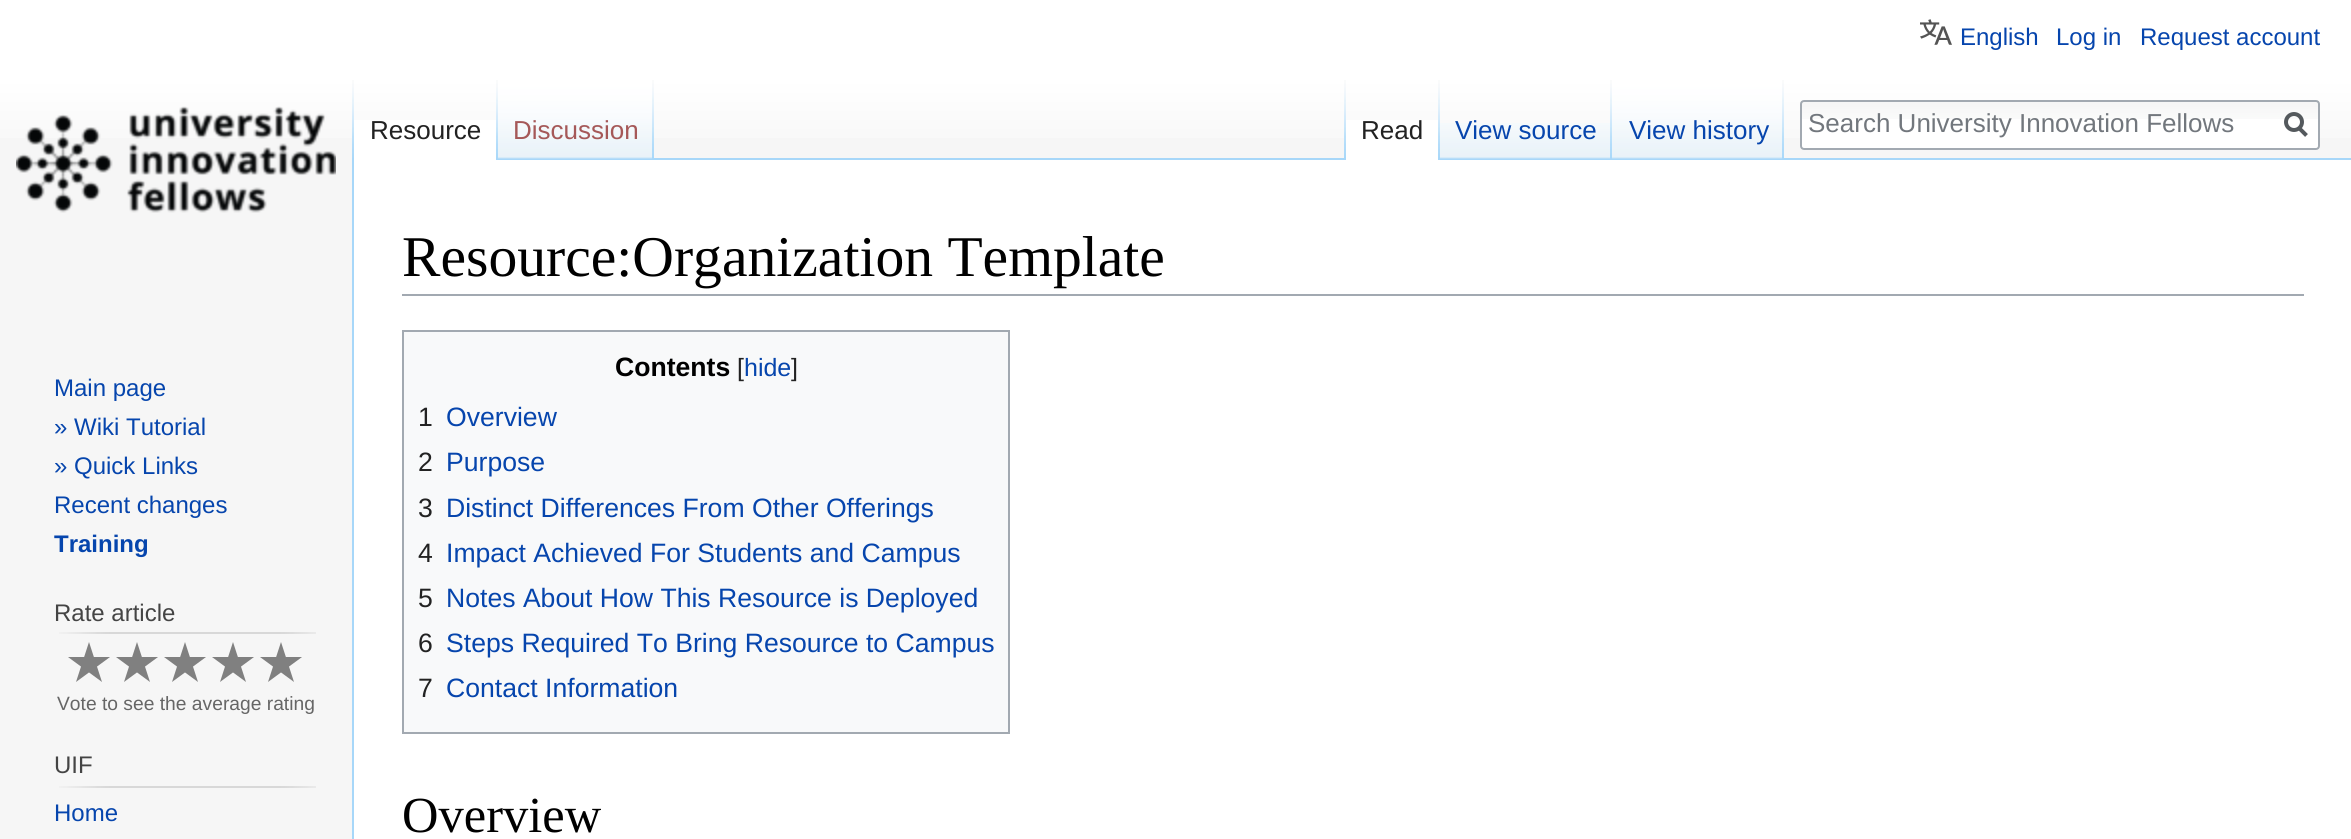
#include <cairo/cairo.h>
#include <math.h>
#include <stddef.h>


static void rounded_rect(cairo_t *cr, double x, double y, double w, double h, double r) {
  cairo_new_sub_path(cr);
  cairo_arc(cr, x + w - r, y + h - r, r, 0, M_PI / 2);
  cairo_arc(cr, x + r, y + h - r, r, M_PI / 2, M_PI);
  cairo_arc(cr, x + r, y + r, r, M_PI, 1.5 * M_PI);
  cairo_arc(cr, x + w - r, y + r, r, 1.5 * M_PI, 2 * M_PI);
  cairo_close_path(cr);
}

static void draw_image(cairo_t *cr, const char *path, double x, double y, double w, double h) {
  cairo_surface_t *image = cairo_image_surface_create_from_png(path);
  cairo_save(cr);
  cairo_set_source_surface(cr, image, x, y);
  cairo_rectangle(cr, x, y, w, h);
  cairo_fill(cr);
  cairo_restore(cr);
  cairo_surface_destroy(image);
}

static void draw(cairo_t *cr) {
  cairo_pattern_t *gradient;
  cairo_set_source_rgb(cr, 246 / 255.0, 246 / 255.0, 246 / 255.0);
  cairo_paint(cr);
  gradient = cairo_pattern_create_linear(1176, 0, 1176, 160);
  cairo_pattern_add_color_stop_rgba(gradient, 0.5, 1, 1, 1, 1);
  cairo_pattern_add_color_stop_rgba(gradient, 1, 246 / 255.0, 246 / 255.0, 246 / 255.0, 1);
  cairo_set_source(cr, gradient);
  cairo_pattern_destroy(gradient);
  cairo_rectangle(cr, 0, 0, 2351, 138);
  cairo_fill(cr);
  draw_image(cr, "images/1.png", 1920, 19, 32, 26);
  draw_image(cr, "images/2.png", 352, 80, 2, 78);
  cairo_set_source_rgb(cr, 1, 1, 1);
  cairo_rectangle(cr, 354, 120, 142, 40);
  cairo_fill(cr);
  draw_image(cr, "images/3.png", 496, 80, 2, 80);
  cairo_set_source_rgb(cr, 167 / 255.0, 215 / 255.0, 249 / 255.0);
  cairo_rectangle(cr, 498, 158, 1853, 2);
  cairo_fill(cr);
  draw_image(cr, "images/4.png", 498, 80, 154, 79);
  draw_image(cr, "images/5.png", 652, 80, 2, 79);
  draw_image(cr, "images/2.png", 1344, 80, 2, 78);
  cairo_set_source_rgb(cr, 1, 1, 1);
  cairo_rectangle(cr, 1346, 120, 92, 40);
  cairo_fill(cr);
  draw_image(cr, "images/3.png", 1438, 80, 2, 80);
  draw_image(cr, "images/6.png", 1440, 123, 170, 36);
  draw_image(cr, "images/5.png", 1610, 80, 2, 79);
  draw_image(cr, "images/7.png", 1612, 80, 170, 79);
  draw_image(cr, "images/5.png", 1782, 80, 2, 79);
  rounded_rect(cr, 1800, 100, 520, 50, 4);
  cairo_fill(cr);
  draw_image(cr, "images/8.png", 1800, 102, 520, 17);
  rounded_rect(cr, 1801, 101, 518, 48, 3);
  cairo_set_source_rgb(cr, 162 / 255.0, 169 / 255.0, 177 / 255.0);
  cairo_stroke(cr);
  cairo_new_path(cr);
  cairo_move_to(cr, 2306.5, 135.5);
  cairo_line_to(cr, 2298.5, 127.5);
  cairo_set_source_rgb(cr, 84 / 255.0, 89 / 255.0, 93 / 255.0);
  cairo_set_line_width(cr, 4);
  cairo_stroke(cr);
  cairo_arc(cr, 2294, 122, 8, 0, 2 * M_PI);
  cairo_stroke(cr);
  draw_image(cr, "images/9.png", 16, 106, 320, 107);
  draw_image(cr, "images/10.png", 59, 632, 257, 2);
  cairo_set_source_rgb(cr, 128 / 255.0, 128 / 255.0, 128 / 255.0);
  cairo_new_path(cr);
  cairo_move_to(cr, 76, 682);
  cairo_line_to(cr, 89, 642);
  cairo_line_to(cr, 102, 682);
  cairo_line_to(cr, 68, 657);
  cairo_line_to(cr, 110, 657);
  cairo_close_path(cr);
  cairo_fill(cr);
  cairo_new_path(cr);
  cairo_move_to(cr, 124, 682);
  cairo_line_to(cr, 137, 642);
  cairo_line_to(cr, 150, 682);
  cairo_line_to(cr, 116, 657);
  cairo_line_to(cr, 158, 657);
  cairo_close_path(cr);
  cairo_fill(cr);
  cairo_new_path(cr);
  cairo_move_to(cr, 172, 682);
  cairo_line_to(cr, 185, 642);
  cairo_line_to(cr, 198, 682);
  cairo_line_to(cr, 164, 657);
  cairo_line_to(cr, 206, 657);
  cairo_close_path(cr);
  cairo_fill(cr);
  cairo_new_path(cr);
  cairo_move_to(cr, 220, 682);
  cairo_line_to(cr, 233, 642);
  cairo_line_to(cr, 246, 682);
  cairo_line_to(cr, 212, 657);
  cairo_line_to(cr, 254, 657);
  cairo_close_path(cr);
  cairo_fill(cr);
  cairo_new_path(cr);
  cairo_move_to(cr, 268, 682);
  cairo_line_to(cr, 281, 642);
  cairo_line_to(cr, 294, 682);
  cairo_line_to(cr, 260, 657);
  cairo_line_to(cr, 302, 657);
  cairo_close_path(cr);
  cairo_fill(cr);
  draw_image(cr, "images/10.png", 59, 786, 257, 2);
  cairo_set_source_rgb(cr, 1, 1, 1);
  cairo_rectangle(cr, 354, 160, 1997, 679);
  cairo_fill(cr);
  cairo_set_source_rgb(cr, 167 / 255.0, 215 / 255.0, 249 / 255.0);
  cairo_rectangle(cr, 352, 158, 2, 681);
  cairo_fill(cr);
  cairo_set_source_rgb(cr, 162 / 255.0, 169 / 255.0, 177 / 255.0);
  cairo_rectangle(cr, 402, 294, 1902, 2);
  cairo_fill(cr);
  cairo_set_source_rgb(cr, 248 / 255.0, 249 / 255.0, 250 / 255.0);
  cairo_rectangle(cr, 403, 331, 606, 402);
  cairo_fill_preserve(cr);
  cairo_set_source_rgb(cr, 162 / 255.0, 169 / 255.0, 177 / 255.0);
  cairo_set_line_width(cr, 2);
  cairo_stroke(cr);
  cairo_select_font_face(cr, "Liberation Sans", CAIRO_FONT_SLANT_NORMAL, CAIRO_FONT_WEIGHT_NORMAL);
  cairo_set_font_size(cr, 24);
  cairo_set_source_rgb(cr, 6 / 255.0, 69 / 255.0, 173 / 255.0);
  cairo_move_to(cr, 1960, 45);
  cairo_show_text(cr, "English");
  cairo_move_to(cr, 2056, 45);
  cairo_show_text(cr, "Log in");
  cairo_move_to(cr, 2140, 45);
  cairo_show_text(cr, "Request account");
  cairo_set_font_size(cr, 26);
  cairo_set_source_rgb(cr, 34 / 255.0, 34 / 255.0, 34 / 255.0);
  cairo_move_to(cr, 370, 139);
  cairo_show_text(cr, "Resource");
  cairo_set_source_rgb(cr, 165 / 255.0, 88 / 255.0, 88 / 255.0);
  cairo_move_to(cr, 513, 139);
  cairo_show_text(cr, "Discussion");
  cairo_set_source_rgb(cr, 34 / 255.0, 34 / 255.0, 34 / 255.0);
  cairo_move_to(cr, 1361, 139);
  cairo_show_text(cr, "Read");
  cairo_set_source_rgb(cr, 6 / 255.0, 69 / 255.0, 173 / 255.0);
  cairo_move_to(cr, 1455, 139);
  cairo_show_text(cr, "View source");
  cairo_move_to(cr, 1629, 139);
  cairo_show_text(cr, "View history");
  cairo_set_source_rgb(cr, 114 / 255.0, 119 / 255.0, 125 / 255.0);
  cairo_move_to(cr, 1808, 132);
  cairo_show_text(cr, "Search University Innovation Fellows");
  cairo_set_font_size(cr, 24);
  cairo_set_source_rgb(cr, 6 / 255.0, 69 / 255.0, 173 / 255.0);
  cairo_move_to(cr, 54, 396);
  cairo_show_text(cr, "Main page");
  cairo_move_to(cr, 54, 435);
  cairo_show_text(cr, "» Wiki Tutorial");
  cairo_move_to(cr, 54, 474);
  cairo_show_text(cr, "» Quick Links");
  cairo_move_to(cr, 54, 513);
  cairo_show_text(cr, "Recent changes");
  cairo_select_font_face(cr, "Liberation Sans", CAIRO_FONT_SLANT_NORMAL, CAIRO_FONT_WEIGHT_BOLD);
  cairo_move_to(cr, 54, 552);
  cairo_show_text(cr, "Training");
  cairo_select_font_face(cr, "Liberation Sans", CAIRO_FONT_SLANT_NORMAL, CAIRO_FONT_WEIGHT_NORMAL);
  cairo_set_source_rgb(cr, 68 / 255.0, 68 / 255.0, 68 / 255.0);
  cairo_move_to(cr, 54, 621);
  cairo_show_text(cr, "Rate article");
  cairo_set_font_size(cr, 19.25);
  cairo_set_source_rgb(cr, 102 / 255.0, 102 / 255.0, 102 / 255.0);
  cairo_move_to(cr, 57, 710);
  cairo_show_text(cr, "Vote to see the average rating");
  cairo_set_font_size(cr, 24);
  cairo_set_source_rgb(cr, 68 / 255.0, 68 / 255.0, 68 / 255.0);
  cairo_move_to(cr, 54, 773);
  cairo_show_text(cr, "UIF");
  cairo_set_source_rgb(cr, 6 / 255.0, 69 / 255.0, 173 / 255.0);
  cairo_move_to(cr, 54, 821);
  cairo_show_text(cr, "Home");
  cairo_select_font_face(cr, "Liberation Serif", CAIRO_FONT_SLANT_NORMAL, CAIRO_FONT_WEIGHT_NORMAL);
  cairo_set_font_size(cr, 57.6);
  cairo_set_source_rgb(cr, 0, 0, 0);
  cairo_move_to(cr, 402, 276);
  cairo_show_text(cr, "Resource:Organization Template");
  cairo_select_font_face(cr, "Liberation Sans", CAIRO_FONT_SLANT_NORMAL, CAIRO_FONT_WEIGHT_BOLD);
  cairo_set_font_size(cr, 26.6);
  cairo_move_to(cr, 615, 376);
  cairo_show_text(cr, "Contents");
  cairo_select_font_face(cr, "Liberation Sans", CAIRO_FONT_SLANT_NORMAL, CAIRO_FONT_WEIGHT_NORMAL);
  cairo_set_font_size(cr, 25);
  cairo_set_source_rgb(cr, 34 / 255.0, 34 / 255.0, 34 / 255.0);
  cairo_move_to(cr, 737, 376);
  cairo_show_text(cr, "[");
  cairo_set_source_rgb(cr, 6 / 255.0, 69 / 255.0, 173 / 255.0);
  cairo_move_to(cr, 744, 376);
  cairo_show_text(cr, "hide");
  cairo_set_source_rgb(cr, 34 / 255.0, 34 / 255.0, 34 / 255.0);
  cairo_move_to(cr, 791, 376);
  cairo_show_text(cr, "]");
  cairo_set_font_size(cr, 26.6);
  cairo_move_to(cr, 418, 426);
  cairo_show_text(cr, "1");
  cairo_set_source_rgb(cr, 6 / 255.0, 69 / 255.0, 173 / 255.0);
  cairo_move_to(cr, 446, 426);
  cairo_show_text(cr, "Overview");
  cairo_set_source_rgb(cr, 34 / 255.0, 34 / 255.0, 34 / 255.0);
  cairo_move_to(cr, 418, 471);
  cairo_show_text(cr, "2");
  cairo_set_source_rgb(cr, 6 / 255.0, 69 / 255.0, 173 / 255.0);
  cairo_move_to(cr, 446, 471);
  cairo_show_text(cr, "Purpose");
  cairo_set_source_rgb(cr, 34 / 255.0, 34 / 255.0, 34 / 255.0);
  cairo_move_to(cr, 418, 517);
  cairo_show_text(cr, "3");
  cairo_set_source_rgb(cr, 6 / 255.0, 69 / 255.0, 173 / 255.0);
  cairo_move_to(cr, 446, 517);
  cairo_show_text(cr, "Distinct Differences From Other Offerings");
  cairo_set_source_rgb(cr, 34 / 255.0, 34 / 255.0, 34 / 255.0);
  cairo_move_to(cr, 418, 562);
  cairo_show_text(cr, "4");
  cairo_set_source_rgb(cr, 6 / 255.0, 69 / 255.0, 173 / 255.0);
  cairo_move_to(cr, 446, 562);
  cairo_show_text(cr, "Impact Achieved For Students and Campus");
  cairo_set_source_rgb(cr, 34 / 255.0, 34 / 255.0, 34 / 255.0);
  cairo_move_to(cr, 418, 607);
  cairo_show_text(cr, "5");
  cairo_set_source_rgb(cr, 6 / 255.0, 69 / 255.0, 173 / 255.0);
  cairo_move_to(cr, 446, 607);
  cairo_show_text(cr, "Notes About How This Resource is Deployed");
  cairo_set_source_rgb(cr, 34 / 255.0, 34 / 255.0, 34 / 255.0);
  cairo_move_to(cr, 418, 652);
  cairo_show_text(cr, "6");
  cairo_set_source_rgb(cr, 6 / 255.0, 69 / 255.0, 173 / 255.0);
  cairo_move_to(cr, 446, 652);
  cairo_show_text(cr, "Steps Required To Bring Resource to Campus");
  cairo_set_source_rgb(cr, 34 / 255.0, 34 / 255.0, 34 / 255.0);
  cairo_move_to(cr, 418, 697);
  cairo_show_text(cr, "7");
  cairo_set_source_rgb(cr, 6 / 255.0, 69 / 255.0, 173 / 255.0);
  cairo_move_to(cr, 446, 697);
  cairo_show_text(cr, "Contact Information");
  cairo_select_font_face(cr, "Liberation Serif", CAIRO_FONT_SLANT_NORMAL, CAIRO_FONT_WEIGHT_NORMAL);
  cairo_set_font_size(cr, 50.5);
  cairo_set_source_rgb(cr, 0, 0, 0);
  cairo_move_to(cr, 402, 832);
  cairo_show_text(cr, "Overview");
}

int main(void) {
  cairo_surface_t *surface = cairo_image_surface_create(CAIRO_FORMAT_RGB24, 2351, 839);
  cairo_t *cr = cairo_create(surface);
  cairo_font_options_t *options = cairo_font_options_create();
  cairo_font_options_set_hint_metrics(options, CAIRO_HINT_METRICS_OFF);
  cairo_font_options_set_hint_style(options, CAIRO_HINT_STYLE_NONE);
  cairo_set_font_options(cr, options);
  cairo_set_miter_limit(cr, 4);
  draw(cr);
  cairo_surface_write_to_png(surface, "out.png");
  cairo_font_options_destroy(options);
  cairo_destroy(cr);
  cairo_surface_destroy(surface);
  return 0;
}
